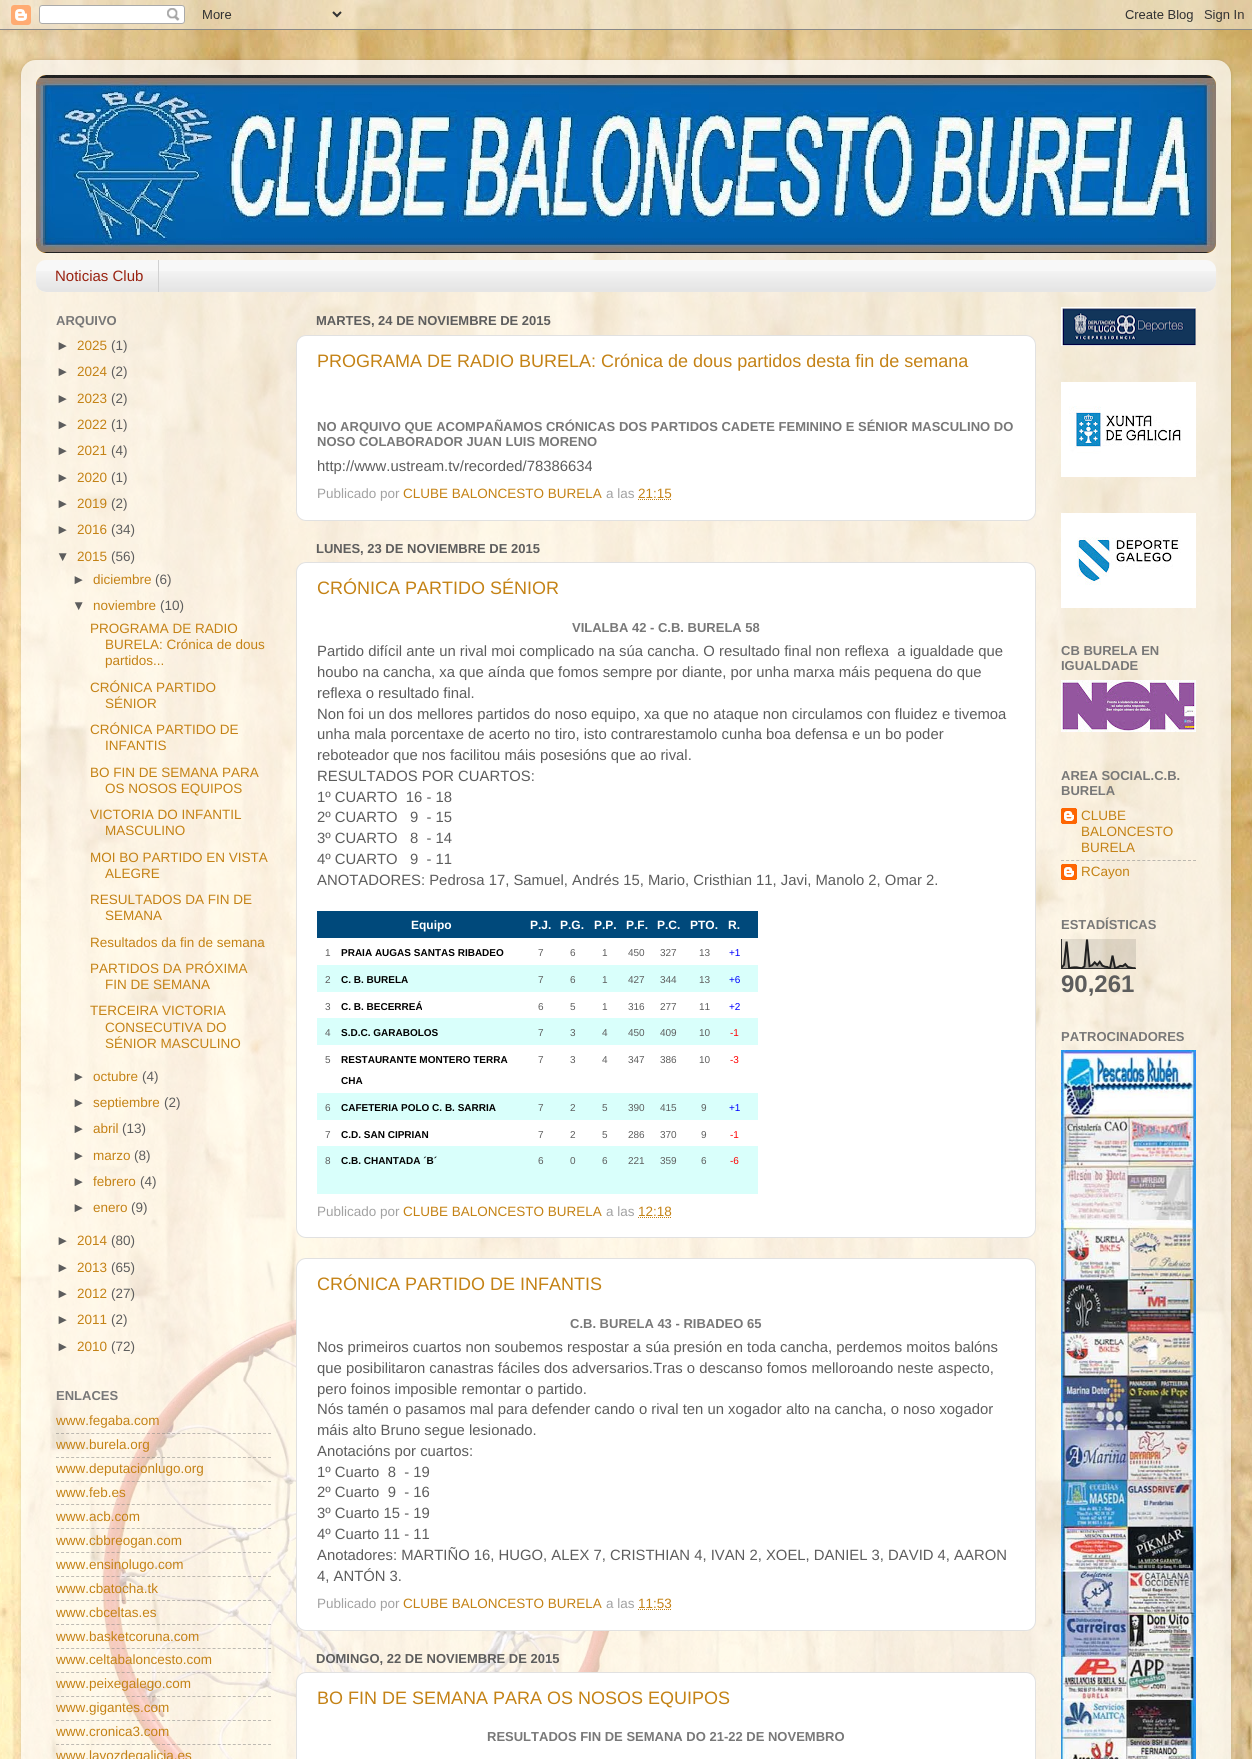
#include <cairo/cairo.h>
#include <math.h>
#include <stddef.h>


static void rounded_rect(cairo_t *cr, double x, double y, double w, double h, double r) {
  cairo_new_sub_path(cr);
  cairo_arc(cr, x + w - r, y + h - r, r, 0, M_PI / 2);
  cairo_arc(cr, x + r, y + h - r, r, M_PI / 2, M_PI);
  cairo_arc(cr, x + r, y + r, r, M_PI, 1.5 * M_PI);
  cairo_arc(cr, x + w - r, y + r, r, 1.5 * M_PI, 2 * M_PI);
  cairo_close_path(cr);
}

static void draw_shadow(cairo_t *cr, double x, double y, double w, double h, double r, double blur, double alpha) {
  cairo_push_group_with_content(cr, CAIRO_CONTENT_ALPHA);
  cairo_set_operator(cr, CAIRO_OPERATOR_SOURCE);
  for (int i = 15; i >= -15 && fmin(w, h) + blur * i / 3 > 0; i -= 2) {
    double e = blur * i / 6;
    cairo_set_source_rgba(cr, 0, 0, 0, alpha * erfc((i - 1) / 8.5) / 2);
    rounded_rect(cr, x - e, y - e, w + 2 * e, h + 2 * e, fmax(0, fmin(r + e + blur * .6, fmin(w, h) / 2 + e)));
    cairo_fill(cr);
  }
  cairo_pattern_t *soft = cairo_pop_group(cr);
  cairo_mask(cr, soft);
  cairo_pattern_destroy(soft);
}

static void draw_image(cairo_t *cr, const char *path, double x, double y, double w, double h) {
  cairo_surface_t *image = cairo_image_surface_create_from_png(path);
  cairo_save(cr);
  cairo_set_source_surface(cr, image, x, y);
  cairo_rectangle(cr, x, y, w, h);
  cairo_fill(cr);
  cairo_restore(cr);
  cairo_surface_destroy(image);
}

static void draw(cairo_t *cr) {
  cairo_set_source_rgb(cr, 1, 1, 1);
  cairo_paint(cr);
  draw_image(cr, "images/1.png", 0, 0, 1252, 1759);
  draw_image(cr, "images/2.png", 0, 0, 1252, 30);
  cairo_save(cr);
  cairo_set_fill_rule(cr, CAIRO_FILL_RULE_EVEN_ODD);
  cairo_new_path(cr);
  cairo_move_to(cr, 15, 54);
  cairo_line_to(cr, 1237, 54);
  cairo_line_to(cr, 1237, 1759);
  cairo_line_to(cr, 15, 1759);
  cairo_close_path(cr);
  cairo_move_to(cr, 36, 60);
  cairo_line_to(cr, 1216, 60);
  cairo_curve_to(cr, 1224.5, 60, 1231, 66.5, 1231, 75);
  cairo_line_to(cr, 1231, 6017);
  cairo_curve_to(cr, 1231, 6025.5, 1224.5, 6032, 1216, 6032);
  cairo_line_to(cr, 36, 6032);
  cairo_curve_to(cr, 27.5, 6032, 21, 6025.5, 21, 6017);
  cairo_line_to(cr, 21, 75);
  cairo_curve_to(cr, 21, 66.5, 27.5, 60, 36, 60);
  cairo_close_path(cr);
  cairo_clip(cr);
  cairo_set_source_rgb(cr, 0, 0, 0);
  draw_shadow(cr, 21, 60, 1210, 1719, 15, 1.5, 0.15);
  cairo_restore(cr);
  draw_image(cr, "images/3.png", 21, 60, 1210, 1699);
  cairo_set_source_rgb(cr, 196 / 255.0, 130 / 255.0, 21 / 255.0);
  rounded_rect(cr, 36, 75, 1180, 178, 10);
  cairo_fill(cr);
  draw_image(cr, "images/4.png", 36, 75, 1180, 10);
  draw_image(cr, "images/5.png", 36, 75, 1180, 178);
  cairo_set_source_rgb(cr, 248 / 255.0, 248 / 255.0, 248 / 255.0);
  rounded_rect(cr, 36, 260, 1180, 32, 10);
  cairo_fill(cr);
  draw_image(cr, "images/6.png", 36, 271, 1180, 21);
  cairo_set_source_rgb(cr, 209 / 255.0, 209 / 255.0, 209 / 255.0);
  cairo_rectangle(cr, 158, 260, 1, 32);
  cairo_fill(cr);
  cairo_new_path(cr);
  cairo_move_to(cr, 56, 1433.5);
  cairo_line_to(cr, 271, 1433.5);
  cairo_set_source_rgba(cr, 128 / 255.0, 128 / 255.0, 128 / 255.0, 0.5);
  cairo_set_line_width(cr, 1);
  cairo_set_dash(cr, (double[]){3, 2.05}, 2, 0);
  cairo_stroke(cr);
  cairo_new_path(cr);
  cairo_move_to(cr, 56, 1457.5);
  cairo_line_to(cr, 271, 1457.5);
  cairo_stroke(cr);
  cairo_new_path(cr);
  cairo_move_to(cr, 56, 1481.5);
  cairo_line_to(cr, 271, 1481.5);
  cairo_stroke(cr);
  cairo_new_path(cr);
  cairo_move_to(cr, 56, 1504.5);
  cairo_line_to(cr, 271, 1504.5);
  cairo_stroke(cr);
  cairo_new_path(cr);
  cairo_move_to(cr, 56, 1528.5);
  cairo_line_to(cr, 271, 1528.5);
  cairo_stroke(cr);
  cairo_new_path(cr);
  cairo_move_to(cr, 56, 1552.5);
  cairo_line_to(cr, 271, 1552.5);
  cairo_stroke(cr);
  cairo_new_path(cr);
  cairo_move_to(cr, 56, 1576.5);
  cairo_line_to(cr, 271, 1576.5);
  cairo_stroke(cr);
  cairo_new_path(cr);
  cairo_move_to(cr, 56, 1600.5);
  cairo_line_to(cr, 271, 1600.5);
  cairo_stroke(cr);
  cairo_new_path(cr);
  cairo_move_to(cr, 56, 1624.5);
  cairo_line_to(cr, 271, 1624.5);
  cairo_stroke(cr);
  cairo_new_path(cr);
  cairo_move_to(cr, 56, 1648.5);
  cairo_line_to(cr, 271, 1648.5);
  cairo_stroke(cr);
  cairo_new_path(cr);
  cairo_move_to(cr, 56, 1672.5);
  cairo_line_to(cr, 271, 1672.5);
  cairo_stroke(cr);
  cairo_new_path(cr);
  cairo_move_to(cr, 56, 1696.5);
  cairo_line_to(cr, 271, 1696.5);
  cairo_stroke(cr);
  cairo_new_path(cr);
  cairo_move_to(cr, 56, 1720.5);
  cairo_line_to(cr, 271, 1720.5);
  cairo_stroke(cr);
  cairo_new_path(cr);
  cairo_move_to(cr, 56, 1744.5);
  cairo_line_to(cr, 271, 1744.5);
  cairo_stroke(cr);
  cairo_set_source_rgb(cr, 1, 1, 1);
  rounded_rect(cr, 296.5, 335.5, 739, 185, 9.5);
  cairo_fill_preserve(cr);
  cairo_set_source_rgb(cr, 225 / 255.0, 225 / 255.0, 225 / 255.0);
  cairo_set_dash(cr, NULL, 0, 0);
  cairo_stroke(cr);
  cairo_new_path(cr);
  cairo_move_to(cr, 638, 499.5);
  cairo_line_to(cr, 672, 499.5);
  cairo_set_source_rgb(cr, 196 / 255.0, 130 / 255.0, 21 / 255.0);
  cairo_set_dash(cr, (double[]){1, 1}, 2, 0);
  cairo_stroke(cr);
  cairo_set_source_rgb(cr, 1, 1, 1);
  rounded_rect(cr, 296.5, 562.5, 739, 675, 9.5);
  cairo_fill_preserve(cr);
  cairo_set_source_rgb(cr, 225 / 255.0, 225 / 255.0, 225 / 255.0);
  cairo_set_dash(cr, NULL, 0, 0);
  cairo_stroke(cr);
  cairo_set_source_rgb(cr, 0, 73 / 255.0, 123 / 255.0);
  cairo_rectangle(cr, 317, 911, 441, 27);
  cairo_fill(cr);
  cairo_set_source_rgb(cr, 217 / 255.0, 1, 251 / 255.0);
  cairo_rectangle(cr, 317, 965, 441, 27);
  cairo_fill(cr);
  cairo_rectangle(cr, 317, 1018, 441, 27);
  cairo_fill(cr);
  cairo_rectangle(cr, 317, 1093, 441, 27);
  cairo_fill(cr);
  cairo_rectangle(cr, 317, 1146, 441, 48);
  cairo_fill(cr);
  cairo_new_path(cr);
  cairo_move_to(cr, 638, 1217.5);
  cairo_line_to(cr, 672, 1217.5);
  cairo_set_source_rgb(cr, 196 / 255.0, 130 / 255.0, 21 / 255.0);
  cairo_set_dash(cr, (double[]){1, 1}, 2, 0);
  cairo_stroke(cr);
  cairo_set_source_rgb(cr, 1, 1, 1);
  rounded_rect(cr, 296.5, 1258.5, 739, 372, 9.5);
  cairo_fill_preserve(cr);
  cairo_set_source_rgb(cr, 225 / 255.0, 225 / 255.0, 225 / 255.0);
  cairo_set_dash(cr, NULL, 0, 0);
  cairo_stroke(cr);
  cairo_new_path(cr);
  cairo_move_to(cr, 638, 1609.5);
  cairo_line_to(cr, 672, 1609.5);
  cairo_set_source_rgb(cr, 196 / 255.0, 130 / 255.0, 21 / 255.0);
  cairo_set_dash(cr, (double[]){1, 1}, 2, 0);
  cairo_stroke(cr);
  cairo_set_source_rgb(cr, 1, 1, 1);
  rounded_rect(cr, 296.5, 1672.5, 739, 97, 9.5);
  cairo_fill_preserve(cr);
  cairo_set_source_rgb(cr, 225 / 255.0, 225 / 255.0, 225 / 255.0);
  cairo_set_dash(cr, NULL, 0, 0);
  cairo_stroke(cr);
  draw_image(cr, "images/7.png", 1061, 307, 135, 39);
  draw_image(cr, "images/8.png", 1061, 382, 135, 95);
  draw_image(cr, "images/9.png", 1061, 513, 135, 95);
  draw_image(cr, "images/10.png", 1061, 680, 135, 52);
  draw_image(cr, "images/11.png", 1061, 808, 16, 16);
  cairo_new_path(cr);
  cairo_move_to(cr, 1061, 860.5);
  cairo_line_to(cr, 1196, 860.5);
  cairo_set_source_rgba(cr, 128 / 255.0, 128 / 255.0, 128 / 255.0, 0.5);
  cairo_set_dash(cr, (double[]){3, 2.08}, 2, 0);
  cairo_stroke(cr);
  draw_image(cr, "images/12.png", 1061, 864, 16, 16);
  draw_image(cr, "images/13.png", 1061, 939, 75, 30);
  draw_image(cr, "images/14.png", 1061, 1050, 135, 709);
  cairo_select_font_face(cr, "Liberation Sans", CAIRO_FONT_SLANT_NORMAL, CAIRO_FONT_WEIGHT_NORMAL);
  cairo_set_font_size(cr, 15);
  cairo_set_source_rgb(cr, 153 / 255.0, 34 / 255.0, 17 / 255.0);
  cairo_move_to(cr, 55, 281);
  cairo_show_text(cr, "Noticias Club");
  cairo_select_font_face(cr, "Liberation Sans", CAIRO_FONT_SLANT_NORMAL, CAIRO_FONT_WEIGHT_BOLD);
  cairo_set_font_size(cr, 13);
  cairo_set_source_rgb(cr, 120 / 255.0, 120 / 255.0, 120 / 255.0);
  cairo_move_to(cr, 56, 325);
  cairo_show_text(cr, "ARQUIVO");
  cairo_select_font_face(cr, "Liberation Sans", CAIRO_FONT_SLANT_NORMAL, CAIRO_FONT_WEIGHT_NORMAL);
  cairo_set_font_size(cr, 13.5);
  cairo_set_source_rgb(cr, 93 / 255.0, 93 / 255.0, 93 / 255.0);
  cairo_move_to(cr, 56, 350);
  cairo_show_text(cr, "►");
  cairo_set_source_rgb(cr, 196 / 255.0, 130 / 255.0, 21 / 255.0);
  cairo_move_to(cr, 77, 350);
  cairo_show_text(cr, "2025");
  cairo_set_source_rgb(cr, 93 / 255.0, 93 / 255.0, 93 / 255.0);
  cairo_move_to(cr, 111, 350);
  cairo_show_text(cr, "(1)");
  cairo_move_to(cr, 56, 376);
  cairo_show_text(cr, "►");
  cairo_set_source_rgb(cr, 196 / 255.0, 130 / 255.0, 21 / 255.0);
  cairo_move_to(cr, 77, 376);
  cairo_show_text(cr, "2024");
  cairo_set_source_rgb(cr, 93 / 255.0, 93 / 255.0, 93 / 255.0);
  cairo_move_to(cr, 111, 376);
  cairo_show_text(cr, "(2)");
  cairo_move_to(cr, 56, 403);
  cairo_show_text(cr, "►");
  cairo_set_source_rgb(cr, 196 / 255.0, 130 / 255.0, 21 / 255.0);
  cairo_move_to(cr, 77, 403);
  cairo_show_text(cr, "2023");
  cairo_set_source_rgb(cr, 93 / 255.0, 93 / 255.0, 93 / 255.0);
  cairo_move_to(cr, 111, 403);
  cairo_show_text(cr, "(2)");
  cairo_move_to(cr, 56, 429);
  cairo_show_text(cr, "►");
  cairo_set_source_rgb(cr, 196 / 255.0, 130 / 255.0, 21 / 255.0);
  cairo_move_to(cr, 77, 429);
  cairo_show_text(cr, "2022");
  cairo_set_source_rgb(cr, 93 / 255.0, 93 / 255.0, 93 / 255.0);
  cairo_move_to(cr, 111, 429);
  cairo_show_text(cr, "(1)");
  cairo_move_to(cr, 56, 455);
  cairo_show_text(cr, "►");
  cairo_set_source_rgb(cr, 196 / 255.0, 130 / 255.0, 21 / 255.0);
  cairo_move_to(cr, 77, 455);
  cairo_show_text(cr, "2021");
  cairo_set_source_rgb(cr, 93 / 255.0, 93 / 255.0, 93 / 255.0);
  cairo_move_to(cr, 111, 455);
  cairo_show_text(cr, "(4)");
  cairo_move_to(cr, 56, 482);
  cairo_show_text(cr, "►");
  cairo_set_source_rgb(cr, 196 / 255.0, 130 / 255.0, 21 / 255.0);
  cairo_move_to(cr, 77, 482);
  cairo_show_text(cr, "2020");
  cairo_set_source_rgb(cr, 93 / 255.0, 93 / 255.0, 93 / 255.0);
  cairo_move_to(cr, 111, 482);
  cairo_show_text(cr, "(1)");
  cairo_move_to(cr, 56, 508);
  cairo_show_text(cr, "►");
  cairo_set_source_rgb(cr, 196 / 255.0, 130 / 255.0, 21 / 255.0);
  cairo_move_to(cr, 77, 508);
  cairo_show_text(cr, "2019");
  cairo_set_source_rgb(cr, 93 / 255.0, 93 / 255.0, 93 / 255.0);
  cairo_move_to(cr, 111, 508);
  cairo_show_text(cr, "(2)");
  cairo_move_to(cr, 56, 534);
  cairo_show_text(cr, "►");
  cairo_set_source_rgb(cr, 196 / 255.0, 130 / 255.0, 21 / 255.0);
  cairo_move_to(cr, 77, 534);
  cairo_show_text(cr, "2016");
  cairo_set_source_rgb(cr, 93 / 255.0, 93 / 255.0, 93 / 255.0);
  cairo_move_to(cr, 111, 534);
  cairo_show_text(cr, "(34)");
  cairo_move_to(cr, 56, 561);
  cairo_show_text(cr, "▼");
  cairo_set_source_rgb(cr, 196 / 255.0, 130 / 255.0, 21 / 255.0);
  cairo_move_to(cr, 77, 561);
  cairo_show_text(cr, "2015");
  cairo_set_source_rgb(cr, 93 / 255.0, 93 / 255.0, 93 / 255.0);
  cairo_move_to(cr, 111, 561);
  cairo_show_text(cr, "(56)");
  cairo_move_to(cr, 72, 584);
  cairo_show_text(cr, "►");
  cairo_set_source_rgb(cr, 196 / 255.0, 130 / 255.0, 21 / 255.0);
  cairo_move_to(cr, 93, 584);
  cairo_show_text(cr, "diciembre");
  cairo_set_source_rgb(cr, 93 / 255.0, 93 / 255.0, 93 / 255.0);
  cairo_move_to(cr, 155, 584);
  cairo_show_text(cr, "(6)");
  cairo_move_to(cr, 72, 610);
  cairo_show_text(cr, "▼");
  cairo_set_source_rgb(cr, 196 / 255.0, 130 / 255.0, 21 / 255.0);
  cairo_move_to(cr, 93, 610);
  cairo_show_text(cr, "noviembre");
  cairo_set_source_rgb(cr, 93 / 255.0, 93 / 255.0, 93 / 255.0);
  cairo_move_to(cr, 160, 610);
  cairo_show_text(cr, "(10)");
  cairo_set_source_rgb(cr, 196 / 255.0, 130 / 255.0, 21 / 255.0);
  cairo_move_to(cr, 90, 633);
  cairo_show_text(cr, "PROGRAMA DE RADIO");
  cairo_move_to(cr, 105, 649);
  cairo_show_text(cr, "BURELA: Crónica de dous");
  cairo_move_to(cr, 105, 665);
  cairo_show_text(cr, "partidos...");
  cairo_move_to(cr, 90, 692);
  cairo_show_text(cr, "CRÓNICA PARTIDO");
  cairo_move_to(cr, 105, 708);
  cairo_show_text(cr, "SÉNIOR");
  cairo_move_to(cr, 90, 734);
  cairo_show_text(cr, "CRÓNICA PARTIDO DE");
  cairo_move_to(cr, 105, 750);
  cairo_show_text(cr, "INFANTIS");
  cairo_move_to(cr, 90, 777);
  cairo_show_text(cr, "BO FIN DE SEMANA PARA");
  cairo_move_to(cr, 105, 793);
  cairo_show_text(cr, "OS NOSOS EQUIPOS");
  cairo_move_to(cr, 90, 819);
  cairo_show_text(cr, "VICTORIA DO INFANTIL");
  cairo_move_to(cr, 105, 835);
  cairo_show_text(cr, "MASCULINO");
  cairo_move_to(cr, 90, 862);
  cairo_show_text(cr, "MOI BO PARTIDO EN VISTA");
  cairo_move_to(cr, 105, 878);
  cairo_show_text(cr, "ALEGRE");
  cairo_move_to(cr, 90, 904);
  cairo_show_text(cr, "RESULTADOS DA FIN DE");
  cairo_move_to(cr, 105, 920);
  cairo_show_text(cr, "SEMANA");
  cairo_move_to(cr, 90, 947);
  cairo_show_text(cr, "Resultados da fin de semana");
  cairo_move_to(cr, 90, 973);
  cairo_show_text(cr, "PARTIDOS DA PRÓXIMA");
  cairo_move_to(cr, 105, 989);
  cairo_show_text(cr, "FIN DE SEMANA");
  cairo_move_to(cr, 90, 1015);
  cairo_show_text(cr, "TERCEIRA VICTORIA");
  cairo_move_to(cr, 105, 1032);
  cairo_show_text(cr, "CONSECUTIVA DO");
  cairo_move_to(cr, 105, 1048);
  cairo_show_text(cr, "SÉNIOR MASCULINO");
  cairo_set_source_rgb(cr, 93 / 255.0, 93 / 255.0, 93 / 255.0);
  cairo_move_to(cr, 72, 1081);
  cairo_show_text(cr, "►");
  cairo_set_source_rgb(cr, 196 / 255.0, 130 / 255.0, 21 / 255.0);
  cairo_move_to(cr, 93, 1081);
  cairo_show_text(cr, "octubre");
  cairo_set_source_rgb(cr, 93 / 255.0, 93 / 255.0, 93 / 255.0);
  cairo_move_to(cr, 142, 1081);
  cairo_show_text(cr, "(4)");
  cairo_move_to(cr, 72, 1107);
  cairo_show_text(cr, "►");
  cairo_set_source_rgb(cr, 196 / 255.0, 130 / 255.0, 21 / 255.0);
  cairo_move_to(cr, 93, 1107);
  cairo_show_text(cr, "septiembre");
  cairo_set_source_rgb(cr, 93 / 255.0, 93 / 255.0, 93 / 255.0);
  cairo_move_to(cr, 164, 1107);
  cairo_show_text(cr, "(2)");
  cairo_move_to(cr, 72, 1133);
  cairo_show_text(cr, "►");
  cairo_set_source_rgb(cr, 196 / 255.0, 130 / 255.0, 21 / 255.0);
  cairo_move_to(cr, 93, 1133);
  cairo_show_text(cr, "abril");
  cairo_set_source_rgb(cr, 93 / 255.0, 93 / 255.0, 93 / 255.0);
  cairo_move_to(cr, 122, 1133);
  cairo_show_text(cr, "(13)");
  cairo_move_to(cr, 72, 1160);
  cairo_show_text(cr, "►");
  cairo_set_source_rgb(cr, 196 / 255.0, 130 / 255.0, 21 / 255.0);
  cairo_move_to(cr, 93, 1160);
  cairo_show_text(cr, "marzo");
  cairo_set_source_rgb(cr, 93 / 255.0, 93 / 255.0, 93 / 255.0);
  cairo_move_to(cr, 134, 1160);
  cairo_show_text(cr, "(8)");
  cairo_move_to(cr, 72, 1186);
  cairo_show_text(cr, "►");
  cairo_set_source_rgb(cr, 196 / 255.0, 130 / 255.0, 21 / 255.0);
  cairo_move_to(cr, 93, 1186);
  cairo_show_text(cr, "febrero");
  cairo_set_source_rgb(cr, 93 / 255.0, 93 / 255.0, 93 / 255.0);
  cairo_move_to(cr, 140, 1186);
  cairo_show_text(cr, "(4)");
  cairo_move_to(cr, 72, 1212);
  cairo_show_text(cr, "►");
  cairo_set_source_rgb(cr, 196 / 255.0, 130 / 255.0, 21 / 255.0);
  cairo_move_to(cr, 93, 1212);
  cairo_show_text(cr, "enero");
  cairo_set_source_rgb(cr, 93 / 255.0, 93 / 255.0, 93 / 255.0);
  cairo_move_to(cr, 131, 1212);
  cairo_show_text(cr, "(9)");
  cairo_move_to(cr, 56, 1245);
  cairo_show_text(cr, "►");
  cairo_set_source_rgb(cr, 196 / 255.0, 130 / 255.0, 21 / 255.0);
  cairo_move_to(cr, 77, 1245);
  cairo_show_text(cr, "2014");
  cairo_set_source_rgb(cr, 93 / 255.0, 93 / 255.0, 93 / 255.0);
  cairo_move_to(cr, 111, 1245);
  cairo_show_text(cr, "(80)");
  cairo_move_to(cr, 56, 1272);
  cairo_show_text(cr, "►");
  cairo_set_source_rgb(cr, 196 / 255.0, 130 / 255.0, 21 / 255.0);
  cairo_move_to(cr, 77, 1272);
  cairo_show_text(cr, "2013");
  cairo_set_source_rgb(cr, 93 / 255.0, 93 / 255.0, 93 / 255.0);
  cairo_move_to(cr, 111, 1272);
  cairo_show_text(cr, "(65)");
  cairo_move_to(cr, 56, 1298);
  cairo_show_text(cr, "►");
  cairo_set_source_rgb(cr, 196 / 255.0, 130 / 255.0, 21 / 255.0);
  cairo_move_to(cr, 77, 1298);
  cairo_show_text(cr, "2012");
  cairo_set_source_rgb(cr, 93 / 255.0, 93 / 255.0, 93 / 255.0);
  cairo_move_to(cr, 111, 1298);
  cairo_show_text(cr, "(27)");
  cairo_move_to(cr, 56, 1324);
  cairo_show_text(cr, "►");
  cairo_set_source_rgb(cr, 196 / 255.0, 130 / 255.0, 21 / 255.0);
  cairo_move_to(cr, 77, 1324);
  cairo_show_text(cr, "2011");
  cairo_set_source_rgb(cr, 93 / 255.0, 93 / 255.0, 93 / 255.0);
  cairo_move_to(cr, 111, 1324);
  cairo_show_text(cr, "(2)");
  cairo_move_to(cr, 56, 1351);
  cairo_show_text(cr, "►");
  cairo_set_source_rgb(cr, 196 / 255.0, 130 / 255.0, 21 / 255.0);
  cairo_move_to(cr, 77, 1351);
  cairo_show_text(cr, "2010");
  cairo_set_source_rgb(cr, 93 / 255.0, 93 / 255.0, 93 / 255.0);
  cairo_move_to(cr, 111, 1351);
  cairo_show_text(cr, "(72)");
  cairo_select_font_face(cr, "Liberation Sans", CAIRO_FONT_SLANT_NORMAL, CAIRO_FONT_WEIGHT_BOLD);
  cairo_set_font_size(cr, 13);
  cairo_set_source_rgb(cr, 120 / 255.0, 120 / 255.0, 120 / 255.0);
  cairo_move_to(cr, 56, 1400);
  cairo_show_text(cr, "ENLACES");
  cairo_select_font_face(cr, "Liberation Sans", CAIRO_FONT_SLANT_NORMAL, CAIRO_FONT_WEIGHT_NORMAL);
  cairo_set_font_size(cr, 13.5);
  cairo_set_source_rgb(cr, 196 / 255.0, 130 / 255.0, 21 / 255.0);
  cairo_move_to(cr, 56, 1425);
  cairo_show_text(cr, "www.fegaba.com");
  cairo_move_to(cr, 56, 1449);
  cairo_show_text(cr, "www.burela.org");
  cairo_move_to(cr, 56, 1473);
  cairo_show_text(cr, "www.deputacionlugo.org");
  cairo_move_to(cr, 56, 1497);
  cairo_show_text(cr, "www.feb.es");
  cairo_move_to(cr, 56, 1521);
  cairo_show_text(cr, "www.acb.com");
  cairo_move_to(cr, 56, 1545);
  cairo_show_text(cr, "www.cbbreogan.com");
  cairo_move_to(cr, 56, 1569);
  cairo_show_text(cr, "www.ensinolugo.com");
  cairo_move_to(cr, 56, 1593);
  cairo_show_text(cr, "www.cbatocha.tk");
  cairo_move_to(cr, 56, 1617);
  cairo_show_text(cr, "www.cbceltas.es");
  cairo_move_to(cr, 56, 1641);
  cairo_show_text(cr, "www.basketcoruna.com");
  cairo_move_to(cr, 56, 1664);
  cairo_show_text(cr, "www.celtabaloncesto.com");
  cairo_move_to(cr, 56, 1688);
  cairo_show_text(cr, "www.peixegalego.com");
  cairo_move_to(cr, 56, 1712);
  cairo_show_text(cr, "www.gigantes.com");
  cairo_move_to(cr, 56, 1736);
  cairo_show_text(cr, "www.cronica3.com");
  cairo_move_to(cr, 56, 1760);
  cairo_show_text(cr, "www.lavozdegalicia.es");
  cairo_select_font_face(cr, "Liberation Sans", CAIRO_FONT_SLANT_NORMAL, CAIRO_FONT_WEIGHT_BOLD);
  cairo_set_font_size(cr, 13);
  cairo_set_source_rgb(cr, 93 / 255.0, 93 / 255.0, 93 / 255.0);
  cairo_move_to(cr, 316, 325);
  cairo_show_text(cr, "MARTES, 24 DE NOVIEMBRE DE 2015");
  cairo_select_font_face(cr, "Liberation Sans", CAIRO_FONT_SLANT_NORMAL, CAIRO_FONT_WEIGHT_NORMAL);
  cairo_set_font_size(cr, 18);
  cairo_set_source_rgb(cr, 196 / 255.0, 130 / 255.0, 21 / 255.0);
  cairo_move_to(cr, 317, 367);
  cairo_show_text(cr, "PROGRAMA DE RADIO BURELA: Crónica de dous partidos desta fin de semana");
  cairo_select_font_face(cr, "Liberation Sans", CAIRO_FONT_SLANT_NORMAL, CAIRO_FONT_WEIGHT_BOLD);
  cairo_set_font_size(cr, 13);
  cairo_set_source_rgb(cr, 120 / 255.0, 120 / 255.0, 120 / 255.0);
  cairo_move_to(cr, 317, 431);
  cairo_show_text(cr, "NO ARQUIVO QUE ACOMPAÑAMOS CRÓNICAS DOS PARTIDOS CADETE FEMININO E SÉNIOR MASCULINO DO");
  cairo_move_to(cr, 317, 446);
  cairo_show_text(cr, "NOSO COLABORADOR JUAN LUIS MORENO");
  cairo_select_font_face(cr, "Liberation Sans", CAIRO_FONT_SLANT_NORMAL, CAIRO_FONT_WEIGHT_NORMAL);
  cairo_set_font_size(cr, 14.85);
  cairo_set_source_rgb(cr, 93 / 255.0, 93 / 255.0, 93 / 255.0);
  cairo_move_to(cr, 317, 471);
  cairo_show_text(cr, "http://www.ustream.tv/recorded/78386634");
  cairo_set_font_size(cr, 13.5);
  cairo_set_source_rgb(cr, 162 / 255.0, 162 / 255.0, 162 / 255.0);
  cairo_move_to(cr, 317, 498);
  cairo_show_text(cr, "Publicado por");
  cairo_set_source_rgb(cr, 196 / 255.0, 130 / 255.0, 21 / 255.0);
  cairo_move_to(cr, 403, 498);
  cairo_show_text(cr, "CLUBE BALONCESTO BURELA");
  cairo_set_source_rgb(cr, 162 / 255.0, 162 / 255.0, 162 / 255.0);
  cairo_move_to(cr, 606, 498);
  cairo_show_text(cr, "a las");
  cairo_set_source_rgb(cr, 196 / 255.0, 130 / 255.0, 21 / 255.0);
  cairo_move_to(cr, 638, 498);
  cairo_show_text(cr, "21:15");
  cairo_select_font_face(cr, "Liberation Sans", CAIRO_FONT_SLANT_NORMAL, CAIRO_FONT_WEIGHT_BOLD);
  cairo_set_font_size(cr, 13);
  cairo_set_source_rgb(cr, 93 / 255.0, 93 / 255.0, 93 / 255.0);
  cairo_move_to(cr, 316, 553);
  cairo_show_text(cr, "LUNES, 23 DE NOVIEMBRE DE 2015");
  cairo_select_font_face(cr, "Liberation Sans", CAIRO_FONT_SLANT_NORMAL, CAIRO_FONT_WEIGHT_NORMAL);
  cairo_set_font_size(cr, 18);
  cairo_set_source_rgb(cr, 196 / 255.0, 130 / 255.0, 21 / 255.0);
  cairo_move_to(cr, 317, 594);
  cairo_show_text(cr, "CRÓNICA PARTIDO SÉNIOR");
  cairo_select_font_face(cr, "Liberation Sans", CAIRO_FONT_SLANT_NORMAL, CAIRO_FONT_WEIGHT_BOLD);
  cairo_set_font_size(cr, 13);
  cairo_set_source_rgb(cr, 120 / 255.0, 120 / 255.0, 120 / 255.0);
  cairo_move_to(cr, 572, 632);
  cairo_show_text(cr, "VILALBA 42 - C.B. BURELA 58");
  cairo_select_font_face(cr, "Liberation Sans", CAIRO_FONT_SLANT_NORMAL, CAIRO_FONT_WEIGHT_NORMAL);
  cairo_set_font_size(cr, 14.85);
  cairo_set_source_rgb(cr, 93 / 255.0, 93 / 255.0, 93 / 255.0);
  cairo_move_to(cr, 317, 656);
  cairo_show_text(cr, "Partido difícil ante un rival moi complicado na súa cancha. O resultado final non reflexa  a igualdade que");
  cairo_move_to(cr, 317, 677);
  cairo_show_text(cr, "houbo na cancha, xa que aínda que fomos sempre por diante, por unha marxa máis pequena do que");
  cairo_move_to(cr, 317, 698);
  cairo_show_text(cr, "reflexa o resultado final.");
  cairo_move_to(cr, 317, 719);
  cairo_show_text(cr, "Non foi un dos mellores partidos do noso equipo, xa que no ataque non circulamos con fluidez e tivemoa");
  cairo_move_to(cr, 317, 739);
  cairo_show_text(cr, "unha mala porcentaxe de acerto no tiro, isto contrarestamolo cunha boa defensa e un bo poder");
  cairo_move_to(cr, 317, 760);
  cairo_show_text(cr, "reboteador que nos facilitou máis posesións que ao rival.");
  cairo_move_to(cr, 317, 781);
  cairo_show_text(cr, "RESULTADOS POR CUARTOS:");
  cairo_move_to(cr, 317, 802);
  cairo_show_text(cr, "1º CUARTO  16 - 18");
  cairo_move_to(cr, 317, 822);
  cairo_show_text(cr, "2º CUARTO   9  - 15");
  cairo_move_to(cr, 317, 843);
  cairo_show_text(cr, "3º CUARTO   8  - 14");
  cairo_move_to(cr, 317, 864);
  cairo_show_text(cr, "4º CUARTO   9  - 11");
  cairo_move_to(cr, 317, 885);
  cairo_show_text(cr, "ANOTADORES: Pedrosa 17, Samuel, Andrés 15, Mario, Cristhian 11, Javi, Manolo 2, Omar 2.");
  cairo_select_font_face(cr, "Liberation Sans", CAIRO_FONT_SLANT_NORMAL, CAIRO_FONT_WEIGHT_BOLD);
  cairo_set_font_size(cr, 12);
  cairo_set_source_rgb(cr, 1, 1, 1);
  cairo_move_to(cr, 411, 929);
  cairo_show_text(cr, "Equipo");
  cairo_move_to(cr, 530, 929);
  cairo_show_text(cr, "P.J.");
  cairo_move_to(cr, 560, 929);
  cairo_show_text(cr, "P.G.");
  cairo_move_to(cr, 594, 929);
  cairo_show_text(cr, "P.P.");
  cairo_move_to(cr, 626, 929);
  cairo_show_text(cr, "P.F.");
  cairo_move_to(cr, 657, 929);
  cairo_show_text(cr, "P.C.");
  cairo_move_to(cr, 690, 929);
  cairo_show_text(cr, "PTO.");
  cairo_move_to(cr, 728, 929);
  cairo_show_text(cr, "R.");
  cairo_select_font_face(cr, "Liberation Sans", CAIRO_FONT_SLANT_NORMAL, CAIRO_FONT_WEIGHT_NORMAL);
  cairo_set_font_size(cr, 10);
  cairo_set_source_rgb(cr, 93 / 255.0, 93 / 255.0, 93 / 255.0);
  cairo_move_to(cr, 325, 956);
  cairo_show_text(cr, "1");
  cairo_select_font_face(cr, "Liberation Sans", CAIRO_FONT_SLANT_NORMAL, CAIRO_FONT_WEIGHT_BOLD);
  cairo_set_source_rgb(cr, 0, 0, 0);
  cairo_move_to(cr, 341, 956);
  cairo_show_text(cr, "PRAIA AUGAS SANTAS RIBADEO");
  cairo_select_font_face(cr, "Liberation Sans", CAIRO_FONT_SLANT_NORMAL, CAIRO_FONT_WEIGHT_NORMAL);
  cairo_set_source_rgb(cr, 93 / 255.0, 93 / 255.0, 93 / 255.0);
  cairo_move_to(cr, 538, 956);
  cairo_show_text(cr, "7");
  cairo_move_to(cr, 570, 956);
  cairo_show_text(cr, "6");
  cairo_move_to(cr, 602, 956);
  cairo_show_text(cr, "1");
  cairo_move_to(cr, 628, 956);
  cairo_show_text(cr, "450");
  cairo_move_to(cr, 660, 956);
  cairo_show_text(cr, "327");
  cairo_move_to(cr, 699, 956);
  cairo_show_text(cr, "13");
  cairo_set_source_rgb(cr, 0, 0, 1);
  cairo_move_to(cr, 729, 956);
  cairo_show_text(cr, "+1");
  cairo_set_source_rgb(cr, 93 / 255.0, 93 / 255.0, 93 / 255.0);
  cairo_move_to(cr, 325, 983);
  cairo_show_text(cr, "2");
  cairo_select_font_face(cr, "Liberation Sans", CAIRO_FONT_SLANT_NORMAL, CAIRO_FONT_WEIGHT_BOLD);
  cairo_set_source_rgb(cr, 0, 0, 0);
  cairo_move_to(cr, 341, 983);
  cairo_show_text(cr, "C. B. BURELA");
  cairo_select_font_face(cr, "Liberation Sans", CAIRO_FONT_SLANT_NORMAL, CAIRO_FONT_WEIGHT_NORMAL);
  cairo_set_source_rgb(cr, 93 / 255.0, 93 / 255.0, 93 / 255.0);
  cairo_move_to(cr, 538, 983);
  cairo_show_text(cr, "7");
  cairo_move_to(cr, 570, 983);
  cairo_show_text(cr, "6");
  cairo_move_to(cr, 602, 983);
  cairo_show_text(cr, "1");
  cairo_move_to(cr, 628, 983);
  cairo_show_text(cr, "427");
  cairo_move_to(cr, 660, 983);
  cairo_show_text(cr, "344");
  cairo_move_to(cr, 699, 983);
  cairo_show_text(cr, "13");
  cairo_set_source_rgb(cr, 0, 0, 1);
  cairo_move_to(cr, 729, 983);
  cairo_show_text(cr, "+6");
  cairo_set_source_rgb(cr, 93 / 255.0, 93 / 255.0, 93 / 255.0);
  cairo_move_to(cr, 325, 1010);
  cairo_show_text(cr, "3");
  cairo_select_font_face(cr, "Liberation Sans", CAIRO_FONT_SLANT_NORMAL, CAIRO_FONT_WEIGHT_BOLD);
  cairo_set_source_rgb(cr, 0, 0, 0);
  cairo_move_to(cr, 341, 1010);
  cairo_show_text(cr, "C. B. BECERREÁ");
  cairo_select_font_face(cr, "Liberation Sans", CAIRO_FONT_SLANT_NORMAL, CAIRO_FONT_WEIGHT_NORMAL);
  cairo_set_source_rgb(cr, 93 / 255.0, 93 / 255.0, 93 / 255.0);
  cairo_move_to(cr, 538, 1010);
  cairo_show_text(cr, "6");
  cairo_move_to(cr, 570, 1010);
  cairo_show_text(cr, "5");
  cairo_move_to(cr, 602, 1010);
  cairo_show_text(cr, "1");
  cairo_move_to(cr, 628, 1010);
  cairo_show_text(cr, "316");
  cairo_move_to(cr, 660, 1010);
  cairo_show_text(cr, "277");
  cairo_move_to(cr, 699, 1010);
  cairo_show_text(cr, "11");
  cairo_set_source_rgb(cr, 0, 0, 1);
  cairo_move_to(cr, 729, 1010);
  cairo_show_text(cr, "+2");
  cairo_set_source_rgb(cr, 93 / 255.0, 93 / 255.0, 93 / 255.0);
  cairo_move_to(cr, 325, 1036);
  cairo_show_text(cr, "4");
  cairo_select_font_face(cr, "Liberation Sans", CAIRO_FONT_SLANT_NORMAL, CAIRO_FONT_WEIGHT_BOLD);
  cairo_set_source_rgb(cr, 0, 0, 0);
  cairo_move_to(cr, 341, 1036);
  cairo_show_text(cr, "S.D.C. GARABOLOS");
  cairo_select_font_face(cr, "Liberation Sans", CAIRO_FONT_SLANT_NORMAL, CAIRO_FONT_WEIGHT_NORMAL);
  cairo_set_source_rgb(cr, 93 / 255.0, 93 / 255.0, 93 / 255.0);
  cairo_move_to(cr, 538, 1036);
  cairo_show_text(cr, "7");
  cairo_move_to(cr, 570, 1036);
  cairo_show_text(cr, "3");
  cairo_move_to(cr, 602, 1036);
  cairo_show_text(cr, "4");
  cairo_move_to(cr, 628, 1036);
  cairo_show_text(cr, "450");
  cairo_move_to(cr, 660, 1036);
  cairo_show_text(cr, "409");
  cairo_move_to(cr, 699, 1036);
  cairo_show_text(cr, "10");
  cairo_set_source_rgb(cr, 1, 0, 0);
  cairo_move_to(cr, 730, 1036);
  cairo_show_text(cr, "-1");
  cairo_set_source_rgb(cr, 93 / 255.0, 93 / 255.0, 93 / 255.0);
  cairo_move_to(cr, 325, 1063);
  cairo_show_text(cr, "5");
  cairo_select_font_face(cr, "Liberation Sans", CAIRO_FONT_SLANT_NORMAL, CAIRO_FONT_WEIGHT_BOLD);
  cairo_set_source_rgb(cr, 0, 0, 0);
  cairo_move_to(cr, 341, 1063);
  cairo_show_text(cr, "RESTAURANTE MONTERO TERRA");
  cairo_move_to(cr, 341, 1084);
  cairo_show_text(cr, "CHA");
  cairo_select_font_face(cr, "Liberation Sans", CAIRO_FONT_SLANT_NORMAL, CAIRO_FONT_WEIGHT_NORMAL);
  cairo_set_source_rgb(cr, 93 / 255.0, 93 / 255.0, 93 / 255.0);
  cairo_move_to(cr, 538, 1063);
  cairo_show_text(cr, "7");
  cairo_move_to(cr, 570, 1063);
  cairo_show_text(cr, "3");
  cairo_move_to(cr, 602, 1063);
  cairo_show_text(cr, "4");
  cairo_move_to(cr, 628, 1063);
  cairo_show_text(cr, "347");
  cairo_move_to(cr, 660, 1063);
  cairo_show_text(cr, "386");
  cairo_move_to(cr, 699, 1063);
  cairo_show_text(cr, "10");
  cairo_set_source_rgb(cr, 1, 0, 0);
  cairo_move_to(cr, 730, 1063);
  cairo_show_text(cr, "-3");
  cairo_set_source_rgb(cr, 93 / 255.0, 93 / 255.0, 93 / 255.0);
  cairo_move_to(cr, 325, 1111);
  cairo_show_text(cr, "6");
  cairo_select_font_face(cr, "Liberation Sans", CAIRO_FONT_SLANT_NORMAL, CAIRO_FONT_WEIGHT_BOLD);
  cairo_set_source_rgb(cr, 0, 0, 0);
  cairo_move_to(cr, 341, 1111);
  cairo_show_text(cr, "CAFETERIA POLO C. B. SARRIA");
  cairo_select_font_face(cr, "Liberation Sans", CAIRO_FONT_SLANT_NORMAL, CAIRO_FONT_WEIGHT_NORMAL);
  cairo_set_source_rgb(cr, 93 / 255.0, 93 / 255.0, 93 / 255.0);
  cairo_move_to(cr, 538, 1111);
  cairo_show_text(cr, "7");
  cairo_move_to(cr, 570, 1111);
  cairo_show_text(cr, "2");
  cairo_move_to(cr, 602, 1111);
  cairo_show_text(cr, "5");
  cairo_move_to(cr, 628, 1111);
  cairo_show_text(cr, "390");
  cairo_move_to(cr, 660, 1111);
  cairo_show_text(cr, "415");
  cairo_move_to(cr, 701, 1111);
  cairo_show_text(cr, "9");
  cairo_set_source_rgb(cr, 0, 0, 1);
  cairo_move_to(cr, 729, 1111);
  cairo_show_text(cr, "+1");
  cairo_set_source_rgb(cr, 93 / 255.0, 93 / 255.0, 93 / 255.0);
  cairo_move_to(cr, 325, 1138);
  cairo_show_text(cr, "7");
  cairo_select_font_face(cr, "Liberation Sans", CAIRO_FONT_SLANT_NORMAL, CAIRO_FONT_WEIGHT_BOLD);
  cairo_set_source_rgb(cr, 0, 0, 0);
  cairo_move_to(cr, 341, 1138);
  cairo_show_text(cr, "C.D. SAN CIPRIAN");
  cairo_select_font_face(cr, "Liberation Sans", CAIRO_FONT_SLANT_NORMAL, CAIRO_FONT_WEIGHT_NORMAL);
  cairo_set_source_rgb(cr, 93 / 255.0, 93 / 255.0, 93 / 255.0);
  cairo_move_to(cr, 538, 1138);
  cairo_show_text(cr, "7");
  cairo_move_to(cr, 570, 1138);
  cairo_show_text(cr, "2");
  cairo_move_to(cr, 602, 1138);
  cairo_show_text(cr, "5");
  cairo_move_to(cr, 628, 1138);
  cairo_show_text(cr, "286");
  cairo_move_to(cr, 660, 1138);
  cairo_show_text(cr, "370");
  cairo_move_to(cr, 701, 1138);
  cairo_show_text(cr, "9");
  cairo_set_source_rgb(cr, 1, 0, 0);
  cairo_move_to(cr, 730, 1138);
  cairo_show_text(cr, "-1");
  cairo_set_source_rgb(cr, 93 / 255.0, 93 / 255.0, 93 / 255.0);
  cairo_move_to(cr, 325, 1164);
  cairo_show_text(cr, "8");
  cairo_select_font_face(cr, "Liberation Sans", CAIRO_FONT_SLANT_NORMAL, CAIRO_FONT_WEIGHT_BOLD);
  cairo_set_source_rgb(cr, 0, 0, 0);
  cairo_move_to(cr, 341, 1164);
  cairo_show_text(cr, "C.B. CHANTADA ´B´");
  cairo_select_font_face(cr, "Liberation Sans", CAIRO_FONT_SLANT_NORMAL, CAIRO_FONT_WEIGHT_NORMAL);
  cairo_set_source_rgb(cr, 93 / 255.0, 93 / 255.0, 93 / 255.0);
  cairo_move_to(cr, 538, 1164);
  cairo_show_text(cr, "6");
  cairo_move_to(cr, 570, 1164);
  cairo_show_text(cr, "0");
  cairo_move_to(cr, 602, 1164);
  cairo_show_text(cr, "6");
  cairo_move_to(cr, 628, 1164);
  cairo_show_text(cr, "221");
  cairo_move_to(cr, 660, 1164);
  cairo_show_text(cr, "359");
  cairo_move_to(cr, 701, 1164);
  cairo_show_text(cr, "6");
  cairo_set_source_rgb(cr, 1, 0, 0);
  cairo_move_to(cr, 730, 1164);
  cairo_show_text(cr, "-6");
  cairo_set_font_size(cr, 13.5);
  cairo_set_source_rgb(cr, 162 / 255.0, 162 / 255.0, 162 / 255.0);
  cairo_move_to(cr, 317, 1216);
  cairo_show_text(cr, "Publicado por");
  cairo_set_source_rgb(cr, 196 / 255.0, 130 / 255.0, 21 / 255.0);
  cairo_move_to(cr, 403, 1216);
  cairo_show_text(cr, "CLUBE BALONCESTO BURELA");
  cairo_set_source_rgb(cr, 162 / 255.0, 162 / 255.0, 162 / 255.0);
  cairo_move_to(cr, 606, 1216);
  cairo_show_text(cr, "a las");
  cairo_set_source_rgb(cr, 196 / 255.0, 130 / 255.0, 21 / 255.0);
  cairo_move_to(cr, 638, 1216);
  cairo_show_text(cr, "12:18");
  cairo_set_font_size(cr, 18);
  cairo_move_to(cr, 317, 1290);
  cairo_show_text(cr, "CRÓNICA PARTIDO DE INFANTIS");
  cairo_select_font_face(cr, "Liberation Sans", CAIRO_FONT_SLANT_NORMAL, CAIRO_FONT_WEIGHT_BOLD);
  cairo_set_font_size(cr, 13);
  cairo_set_source_rgb(cr, 120 / 255.0, 120 / 255.0, 120 / 255.0);
  cairo_move_to(cr, 570, 1328);
  cairo_show_text(cr, "C.B. BURELA 43 - RIBADEO 65");
  cairo_select_font_face(cr, "Liberation Sans", CAIRO_FONT_SLANT_NORMAL, CAIRO_FONT_WEIGHT_NORMAL);
  cairo_set_font_size(cr, 14.85);
  cairo_set_source_rgb(cr, 93 / 255.0, 93 / 255.0, 93 / 255.0);
  cairo_move_to(cr, 317, 1352);
  cairo_show_text(cr, "Nos primeiros cuartos non soubemos respostar a súa presión en toda cancha, perdemos moitos balóns");
  cairo_move_to(cr, 317, 1373);
  cairo_show_text(cr, "que posibilitaron canastras fáciles dos adversarios.Tras o descanso fomos melloroando neste aspecto,");
  cairo_move_to(cr, 317, 1394);
  cairo_show_text(cr, "pero foinos imposible remontar o partido.");
  cairo_move_to(cr, 317, 1414);
  cairo_show_text(cr, "Nós tamén o pasamos mal para defender cando o rival ten un xogador alto na cancha, o noso xogador");
  cairo_move_to(cr, 317, 1435);
  cairo_show_text(cr, "máis alto Bruno segue lesionado.");
  cairo_move_to(cr, 317, 1456);
  cairo_show_text(cr, "Anotacións por cuartos:");
  cairo_move_to(cr, 317, 1477);
  cairo_show_text(cr, "1º Cuarto  8  - 19");
  cairo_move_to(cr, 317, 1497);
  cairo_show_text(cr, "2º Cuarto  9  - 16");
  cairo_move_to(cr, 317, 1518);
  cairo_show_text(cr, "3º Cuarto 15 - 19");
  cairo_move_to(cr, 317, 1539);
  cairo_show_text(cr, "4º Cuarto 11 - 11");
  cairo_move_to(cr, 317, 1560);
  cairo_show_text(cr, "Anotadores: MARTIÑO 16, HUGO, ALEX 7, CRISTHIAN 4, IVAN 2, XOEL, DANIEL 3, DAVID 4, AARON");
  cairo_move_to(cr, 317, 1581);
  cairo_show_text(cr, "4, ANTÓN 3.");
  cairo_set_font_size(cr, 13.5);
  cairo_set_source_rgb(cr, 162 / 255.0, 162 / 255.0, 162 / 255.0);
  cairo_move_to(cr, 317, 1608);
  cairo_show_text(cr, "Publicado por");
  cairo_set_source_rgb(cr, 196 / 255.0, 130 / 255.0, 21 / 255.0);
  cairo_move_to(cr, 403, 1608);
  cairo_show_text(cr, "CLUBE BALONCESTO BURELA");
  cairo_set_source_rgb(cr, 162 / 255.0, 162 / 255.0, 162 / 255.0);
  cairo_move_to(cr, 606, 1608);
  cairo_show_text(cr, "a las");
  cairo_set_source_rgb(cr, 196 / 255.0, 130 / 255.0, 21 / 255.0);
  cairo_move_to(cr, 638, 1608);
  cairo_show_text(cr, "11:53");
  cairo_select_font_face(cr, "Liberation Sans", CAIRO_FONT_SLANT_NORMAL, CAIRO_FONT_WEIGHT_BOLD);
  cairo_set_font_size(cr, 13);
  cairo_set_source_rgb(cr, 93 / 255.0, 93 / 255.0, 93 / 255.0);
  cairo_move_to(cr, 316, 1663);
  cairo_show_text(cr, "DOMINGO, 22 DE NOVIEMBRE DE 2015");
  cairo_select_font_face(cr, "Liberation Sans", CAIRO_FONT_SLANT_NORMAL, CAIRO_FONT_WEIGHT_NORMAL);
  cairo_set_font_size(cr, 18);
  cairo_set_source_rgb(cr, 196 / 255.0, 130 / 255.0, 21 / 255.0);
  cairo_move_to(cr, 317, 1704);
  cairo_show_text(cr, "BO FIN DE SEMANA PARA OS NOSOS EQUIPOS");
  cairo_select_font_face(cr, "Liberation Sans", CAIRO_FONT_SLANT_NORMAL, CAIRO_FONT_WEIGHT_BOLD);
  cairo_set_font_size(cr, 13);
  cairo_set_source_rgb(cr, 120 / 255.0, 120 / 255.0, 120 / 255.0);
  cairo_move_to(cr, 487, 1741);
  cairo_show_text(cr, "RESULTADOS FIN DE SEMANA DO 21-22 DE NOVEMBRO");
  cairo_move_to(cr, 1061, 655);
  cairo_show_text(cr, "CB BURELA EN");
  cairo_move_to(cr, 1061, 670);
  cairo_show_text(cr, "IGUALDADE");
  cairo_move_to(cr, 1061, 780);
  cairo_show_text(cr, "AREA SOCIAL.C.B.");
  cairo_move_to(cr, 1061, 795);
  cairo_show_text(cr, "BURELA");
  cairo_select_font_face(cr, "Liberation Sans", CAIRO_FONT_SLANT_NORMAL, CAIRO_FONT_WEIGHT_NORMAL);
  cairo_set_font_size(cr, 13.5);
  cairo_set_source_rgb(cr, 196 / 255.0, 130 / 255.0, 21 / 255.0);
  cairo_move_to(cr, 1081, 820);
  cairo_show_text(cr, "CLUBE");
  cairo_move_to(cr, 1081, 836);
  cairo_show_text(cr, "BALONCESTO");
  cairo_move_to(cr, 1081, 852);
  cairo_show_text(cr, "BURELA");
  cairo_move_to(cr, 1081, 876);
  cairo_show_text(cr, "RCayon");
  cairo_select_font_face(cr, "Liberation Sans", CAIRO_FONT_SLANT_NORMAL, CAIRO_FONT_WEIGHT_BOLD);
  cairo_set_font_size(cr, 13);
  cairo_set_source_rgb(cr, 120 / 255.0, 120 / 255.0, 120 / 255.0);
  cairo_move_to(cr, 1061, 929);
  cairo_show_text(cr, "ESTADÍSTICAS");
  cairo_set_font_size(cr, 24);
  cairo_set_source_rgb(cr, 93 / 255.0, 93 / 255.0, 93 / 255.0);
  cairo_move_to(cr, 1061, 992);
  cairo_show_text(cr, "90,261");
  cairo_set_font_size(cr, 13);
  cairo_set_source_rgb(cr, 120 / 255.0, 120 / 255.0, 120 / 255.0);
  cairo_move_to(cr, 1061, 1041);
  cairo_show_text(cr, "PATROCINADORES");
}

int main(void) {
  cairo_surface_t *surface = cairo_image_surface_create(CAIRO_FORMAT_RGB24, 1252, 1759);
  cairo_t *cr = cairo_create(surface);
  cairo_font_options_t *options = cairo_font_options_create();
  cairo_font_options_set_hint_metrics(options, CAIRO_HINT_METRICS_OFF);
  cairo_font_options_set_hint_style(options, CAIRO_HINT_STYLE_NONE);
  cairo_set_font_options(cr, options);
  cairo_set_miter_limit(cr, 4);
  draw(cr);
  cairo_surface_write_to_png(surface, "out.png");
  cairo_font_options_destroy(options);
  cairo_destroy(cr);
  cairo_surface_destroy(surface);
  return 0;
}
